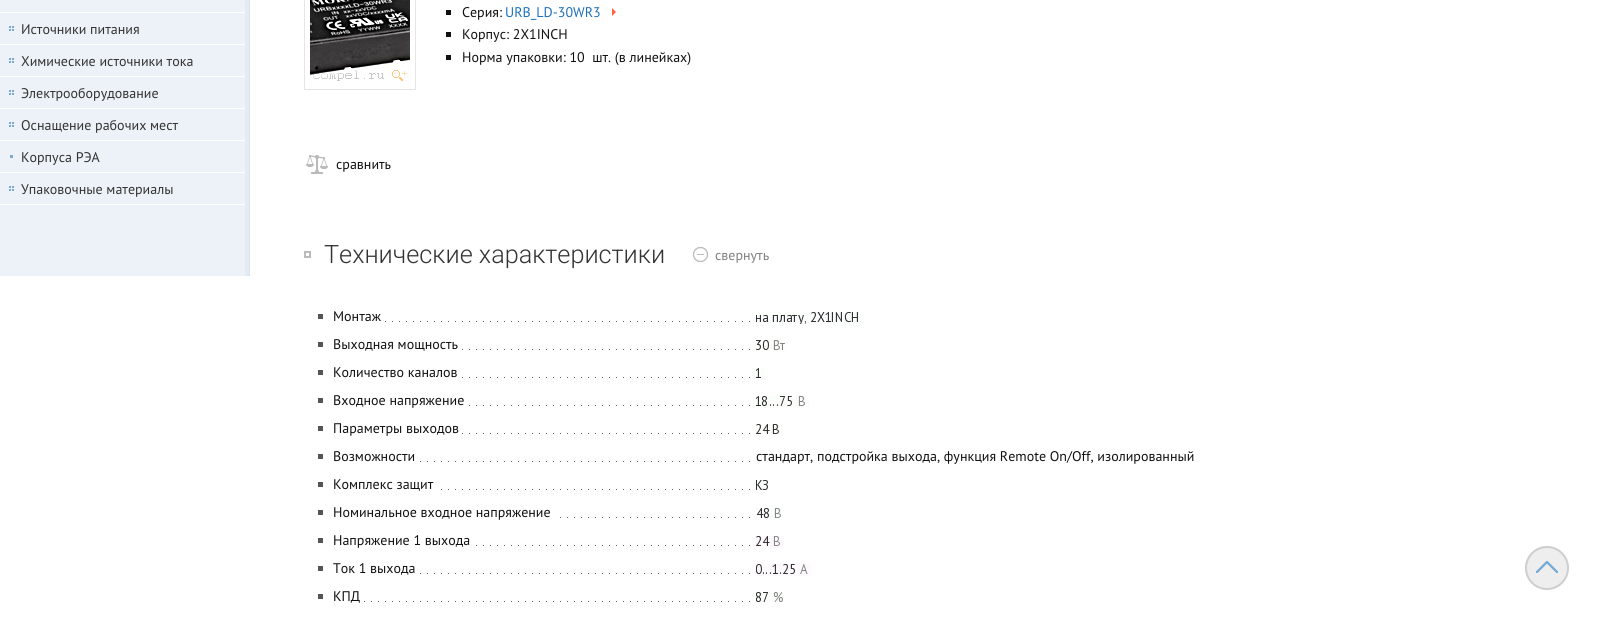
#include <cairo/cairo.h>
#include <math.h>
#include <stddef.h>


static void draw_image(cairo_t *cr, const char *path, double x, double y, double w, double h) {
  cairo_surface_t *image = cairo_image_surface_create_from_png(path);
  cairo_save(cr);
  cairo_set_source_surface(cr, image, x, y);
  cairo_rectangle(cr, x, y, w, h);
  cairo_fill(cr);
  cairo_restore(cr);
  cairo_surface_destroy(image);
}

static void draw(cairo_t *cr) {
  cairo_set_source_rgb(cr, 1, 1, 1);
  cairo_paint(cr);
  cairo_set_source_rgb(cr, 237 / 255.0, 242 / 255.0, 248 / 255.0);
  cairo_rectangle(cr, 0, 0, 245, 276);
  cairo_fill(cr);
  cairo_set_source_rgb(cr, 1, 1, 1);
  cairo_rectangle(cr, 0, 12, 250, 1);
  cairo_fill(cr);
  cairo_rectangle(cr, 0, 44, 250, 1);
  cairo_fill(cr);
  draw_image(cr, "images/1.png", 9, 26, 5, 5);
  cairo_rectangle(cr, 0, 76, 250, 1);
  cairo_fill(cr);
  draw_image(cr, "images/1.png", 9, 58, 5, 5);
  cairo_rectangle(cr, 0, 108, 250, 1);
  cairo_fill(cr);
  draw_image(cr, "images/1.png", 9, 90, 5, 5);
  cairo_rectangle(cr, 0, 140, 250, 1);
  cairo_fill(cr);
  draw_image(cr, "images/1.png", 9, 122, 5, 5);
  cairo_rectangle(cr, 0, 172, 250, 1);
  cairo_fill(cr);
  cairo_set_source_rgb(cr, 119 / 255.0, 170 / 255.0, 212 / 255.0);
  cairo_rectangle(cr, 10, 155, 3, 3);
  cairo_fill(cr);
  cairo_set_source_rgb(cr, 1, 1, 1);
  cairo_rectangle(cr, 0, 204, 250, 1);
  cairo_fill(cr);
  draw_image(cr, "images/1.png", 9, 186, 5, 5);
  cairo_set_source_rgb(cr, 228 / 255.0, 235 / 255.0, 243 / 255.0);
  cairo_rectangle(cr, 245, 0, 4, 276);
  cairo_fill(cr);
  cairo_set_source_rgb(cr, 216 / 255.0, 228 / 255.0, 240 / 255.0);
  cairo_rectangle(cr, 249, 0, 1, 276);
  cairo_fill(cr);
  cairo_rectangle(cr, 304.5, -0.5, 111, 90);
  cairo_set_source_rgb(cr, 229 / 255.0, 229 / 255.0, 229 / 255.0);
  cairo_set_line_width(cr, 1);
  cairo_stroke(cr);
  draw_image(cr, "images/2.png", 310, 0, 100, 81);
  cairo_set_source_rgb(cr, 17 / 255.0, 17 / 255.0, 17 / 255.0);
  cairo_rectangle(cr, 446, 10, 5, 5);
  cairo_fill(cr);
  cairo_set_source_rgb(cr, 1, 99 / 255.0, 71 / 255.0);
  cairo_new_path(cr);
  cairo_move_to(cr, 612, 16);
  cairo_line_to(cr, 612, 8);
  cairo_line_to(cr, 616, 12);
  cairo_close_path(cr);
  cairo_fill(cr);
  cairo_set_source_rgb(cr, 17 / 255.0, 17 / 255.0, 17 / 255.0);
  cairo_rectangle(cr, 446, 32, 5, 5);
  cairo_fill(cr);
  cairo_rectangle(cr, 446, 55, 5, 5);
  cairo_fill(cr);
  draw_image(cr, "images/3.png", 306, 155, 22, 19);
  draw_image(cr, "images/4.png", 304, 251, 7, 7);
  draw_image(cr, "images/5.png", 693, 247, 15, 15);
  cairo_set_source_rgb(cr, 85 / 255.0, 85 / 255.0, 85 / 255.0);
  cairo_rectangle(cr, 318, 314, 5, 5);
  cairo_fill(cr);
  draw_image(cr, "images/6.png", 385, 321, 365, 1);
  draw_image(cr, "images/7.png", 756, 312, 107, 12);
  cairo_rectangle(cr, 318, 342, 5, 5);
  cairo_fill(cr);
  draw_image(cr, "images/8.png", 462, 349, 288, 1);
  draw_image(cr, "images/9.png", 756, 340, 29, 10);
  cairo_rectangle(cr, 318, 370, 5, 5);
  cairo_fill(cr);
  draw_image(cr, "images/8.png", 462, 377, 288, 1);
  draw_image(cr, "images/10.png", 756, 368, 9, 12);
  cairo_rectangle(cr, 318, 398, 5, 5);
  cairo_fill(cr);
  draw_image(cr, "images/11.png", 469, 405, 281, 1);
  draw_image(cr, "images/12.png", 756, 396, 53, 12);
  cairo_rectangle(cr, 318, 426, 5, 5);
  cairo_fill(cr);
  draw_image(cr, "images/8.png", 462, 433, 288, 1);
  draw_image(cr, "images/13.png", 756, 424, 27, 12);
  cairo_rectangle(cr, 318, 454, 5, 5);
  cairo_fill(cr);
  draw_image(cr, "images/14.png", 420, 461, 330, 1);
  cairo_rectangle(cr, 318, 482, 5, 5);
  cairo_fill(cr);
  draw_image(cr, "images/15.png", 441, 489, 309, 1);
  draw_image(cr, "images/16.png", 756, 480, 12, 10);
  cairo_rectangle(cr, 318, 510, 5, 5);
  cairo_fill(cr);
  draw_image(cr, "images/17.png", 560, 517, 190, 1);
  draw_image(cr, "images/18.png", 756, 508, 25, 10);
  cairo_rectangle(cr, 318, 538, 5, 5);
  cairo_fill(cr);
  draw_image(cr, "images/19.png", 476, 545, 274, 1);
  draw_image(cr, "images/20.png", 756, 536, 28, 12);
  cairo_rectangle(cr, 318, 566, 5, 5);
  cairo_fill(cr);
  draw_image(cr, "images/14.png", 420, 573, 330, 1);
  draw_image(cr, "images/21.png", 756, 564, 55, 12);
  cairo_rectangle(cr, 318, 594, 5, 5);
  cairo_fill(cr);
  draw_image(cr, "images/22.png", 364, 601, 386, 1);
  draw_image(cr, "images/23.png", 756, 592, 27, 10);
  cairo_set_source_rgb(cr, 238 / 255.0, 238 / 255.0, 238 / 255.0);
  cairo_arc(cr, 1547, 568, 22, 0, 2 * M_PI);
  cairo_fill(cr);
  draw_image(cr, "images/24.png", 1536, 561, 22, 12);
  cairo_arc(cr, 1547, 568, 21, 0, 2 * M_PI);
  cairo_set_source_rgba(cr, 199 / 255.0, 199 / 255.0, 199 / 255.0, 0.8);
  cairo_set_line_width(cr, 2);
  cairo_stroke(cr);
  cairo_select_font_face(cr, "PT Sans", CAIRO_FONT_SLANT_NORMAL, CAIRO_FONT_WEIGHT_NORMAL);
  cairo_set_font_size(cr, 14);
  cairo_set_source_rgb(cr, 51 / 255.0, 51 / 255.0, 51 / 255.0);
  cairo_move_to(cr, 21, 34);
  cairo_show_text(cr, "Источники питания");
  cairo_move_to(cr, 21, 66);
  cairo_show_text(cr, "Химические источники тока");
  cairo_move_to(cr, 21, 98);
  cairo_show_text(cr, "Электрооборудование");
  cairo_move_to(cr, 21, 130);
  cairo_show_text(cr, "Оснащение рабочих мест");
  cairo_move_to(cr, 21, 162);
  cairo_show_text(cr, "Корпуса РЭА");
  cairo_move_to(cr, 21, 194);
  cairo_show_text(cr, "Упаковочные материалы");
  cairo_set_source_rgb(cr, 17 / 255.0, 17 / 255.0, 17 / 255.0);
  cairo_move_to(cr, 462, 17);
  cairo_show_text(cr, "Серия:");
  cairo_set_source_rgb(cr, 29 / 255.0, 113 / 255.0, 184 / 255.0);
  cairo_move_to(cr, 505, 17);
  cairo_show_text(cr, "URB_LD-30WR3");
  cairo_set_source_rgb(cr, 17 / 255.0, 17 / 255.0, 17 / 255.0);
  cairo_move_to(cr, 462, 39);
  cairo_show_text(cr, "Корпус: 2X1INCH");
  cairo_move_to(cr, 462, 62);
  cairo_show_text(cr, "Норма упаковки: 10  шт. (в линейках)");
  cairo_move_to(cr, 336, 169);
  cairo_show_text(cr, "сравнить");
  cairo_select_font_face(cr, "Roboto Light", CAIRO_FONT_SLANT_NORMAL, CAIRO_FONT_WEIGHT_NORMAL);
  cairo_set_font_size(cr, 25.25);
  cairo_set_source_rgb(cr, 51 / 255.0, 51 / 255.0, 51 / 255.0);
  cairo_move_to(cr, 324, 263);
  cairo_show_text(cr, "Технические характеристики");
  cairo_select_font_face(cr, "PT Sans", CAIRO_FONT_SLANT_NORMAL, CAIRO_FONT_WEIGHT_NORMAL);
  cairo_set_font_size(cr, 14);
  cairo_set_source_rgb(cr, 128 / 255.0, 128 / 255.0, 128 / 255.0);
  cairo_move_to(cr, 715, 260);
  cairo_show_text(cr, "свернуть");
  cairo_set_source_rgb(cr, 17 / 255.0, 17 / 255.0, 17 / 255.0);
  cairo_move_to(cr, 333, 321);
  cairo_show_text(cr, "Монтаж");
  cairo_move_to(cr, 333, 349);
  cairo_show_text(cr, "Выходная мощность");
  cairo_move_to(cr, 333, 377);
  cairo_show_text(cr, "Количество каналов");
  cairo_move_to(cr, 333, 405);
  cairo_show_text(cr, "Входное напряжение");
  cairo_move_to(cr, 333, 433);
  cairo_show_text(cr, "Параметры выходов");
  cairo_move_to(cr, 333, 461);
  cairo_show_text(cr, "Возможности");
  cairo_move_to(cr, 756, 461);
  cairo_show_text(cr, "стандарт, подстройка выхода, функция Remote On/Off, изолированный");
  cairo_move_to(cr, 333, 489);
  cairo_show_text(cr, "Комплекс защит");
  cairo_move_to(cr, 333, 517);
  cairo_show_text(cr, "Номинальное входное напряжение");
  cairo_move_to(cr, 333, 545);
  cairo_show_text(cr, "Напряжение 1 выхода");
  cairo_move_to(cr, 333, 573);
  cairo_show_text(cr, "Ток 1 выхода");
  cairo_move_to(cr, 333, 601);
  cairo_show_text(cr, "КПД");
}

int main(void) {
  cairo_surface_t *surface = cairo_image_surface_create(CAIRO_FORMAT_RGB24, 1599, 620);
  cairo_t *cr = cairo_create(surface);
  cairo_font_options_t *options = cairo_font_options_create();
  cairo_font_options_set_hint_metrics(options, CAIRO_HINT_METRICS_OFF);
  cairo_font_options_set_hint_style(options, CAIRO_HINT_STYLE_NONE);
  cairo_set_font_options(cr, options);
  cairo_set_miter_limit(cr, 4);
  draw(cr);
  cairo_surface_write_to_png(surface, "out.png");
  cairo_font_options_destroy(options);
  cairo_destroy(cr);
  cairo_surface_destroy(surface);
  return 0;
}
